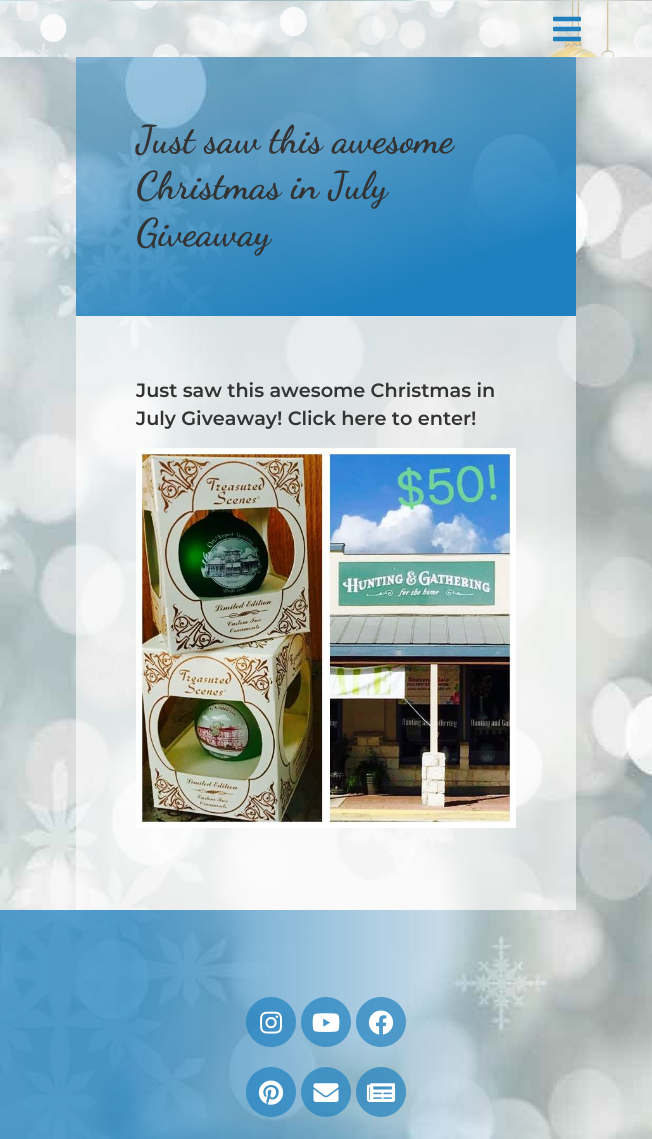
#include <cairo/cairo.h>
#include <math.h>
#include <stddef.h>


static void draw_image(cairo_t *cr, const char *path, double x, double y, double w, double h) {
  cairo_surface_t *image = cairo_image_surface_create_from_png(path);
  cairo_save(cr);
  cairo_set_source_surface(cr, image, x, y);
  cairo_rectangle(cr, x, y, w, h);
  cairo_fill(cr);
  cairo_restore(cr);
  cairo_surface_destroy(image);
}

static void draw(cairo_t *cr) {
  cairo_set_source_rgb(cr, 1, 1, 1);
  cairo_paint(cr);
  draw_image(cr, "images/1.png", 0, 0, 652, 1139);
  draw_image(cr, "images/2.png", 0, 1, 652, 56);
  draw_image(cr, "images/3.png", 553, 16, 28, 26);
  cairo_set_source_rgba(cr, 1, 1, 1, 0.6);
  cairo_rectangle(cr, 76, 316, 500, 594);
  cairo_fill(cr);
  draw_image(cr, "images/4.png", 136, 448, 380, 380);
  cairo_set_source_rgba(cr, 30 / 255.0, 128 / 255.0, 191 / 255.0, 0.68);
  cairo_arc(cr, 271, 1022, 25, 0, 2 * M_PI);
  cairo_fill(cr);
  draw_image(cr, "images/5.png", 260, 1011, 22, 23);
  cairo_arc(cr, 326, 1022, 25, 0, 2 * M_PI);
  cairo_fill(cr);
  draw_image(cr, "images/6.png", 312, 1013, 28, 19);
  cairo_arc(cr, 381, 1022, 25, 0, 2 * M_PI);
  cairo_fill(cr);
  draw_image(cr, "images/7.png", 368, 1010, 26, 25);
  cairo_arc(cr, 271, 1092, 25, 0, 2 * M_PI);
  cairo_fill(cr);
  draw_image(cr, "images/8.png", 258, 1080, 26, 25);
  cairo_arc(cr, 326, 1092, 25, 0, 2 * M_PI);
  cairo_fill(cr);
  draw_image(cr, "images/9.png", 313, 1083, 26, 19);
  cairo_arc(cr, 381, 1092, 25, 0, 2 * M_PI);
  cairo_fill(cr);
  draw_image(cr, "images/10.png", 366, 1083, 30, 19);
  cairo_select_font_face(cr, "Dancing Script", CAIRO_FONT_SLANT_NORMAL, CAIRO_FONT_WEIGHT_BOLD);
  cairo_set_font_size(cr, 38.5);
  cairo_set_source_rgb(cr, 51 / 255.0, 51 / 255.0, 51 / 255.0);
  cairo_move_to(cr, 136, 152);
  cairo_show_text(cr, "Just saw this awesome");
  cairo_move_to(cr, 136, 198);
  cairo_show_text(cr, "Christmas in July");
  cairo_move_to(cr, 136, 245);
  cairo_show_text(cr, "Giveaway");
  cairo_select_font_face(cr, "Montserrat SemiBold", CAIRO_FONT_SLANT_NORMAL, CAIRO_FONT_WEIGHT_NORMAL);
  cairo_set_font_size(cr, 19.25);
  cairo_move_to(cr, 136, 397);
  cairo_show_text(cr, "Just saw this awesome Christmas in");
  cairo_move_to(cr, 136, 425);
  cairo_show_text(cr, "July Giveaway! Click here to enter!");
}

int main(void) {
  cairo_surface_t *surface = cairo_image_surface_create(CAIRO_FORMAT_RGB24, 652, 1139);
  cairo_t *cr = cairo_create(surface);
  cairo_font_options_t *options = cairo_font_options_create();
  cairo_font_options_set_hint_metrics(options, CAIRO_HINT_METRICS_OFF);
  cairo_font_options_set_hint_style(options, CAIRO_HINT_STYLE_NONE);
  cairo_set_font_options(cr, options);
  cairo_set_miter_limit(cr, 4);
  draw(cr);
  cairo_surface_write_to_png(surface, "out.png");
  cairo_font_options_destroy(options);
  cairo_destroy(cr);
  cairo_surface_destroy(surface);
  return 0;
}
